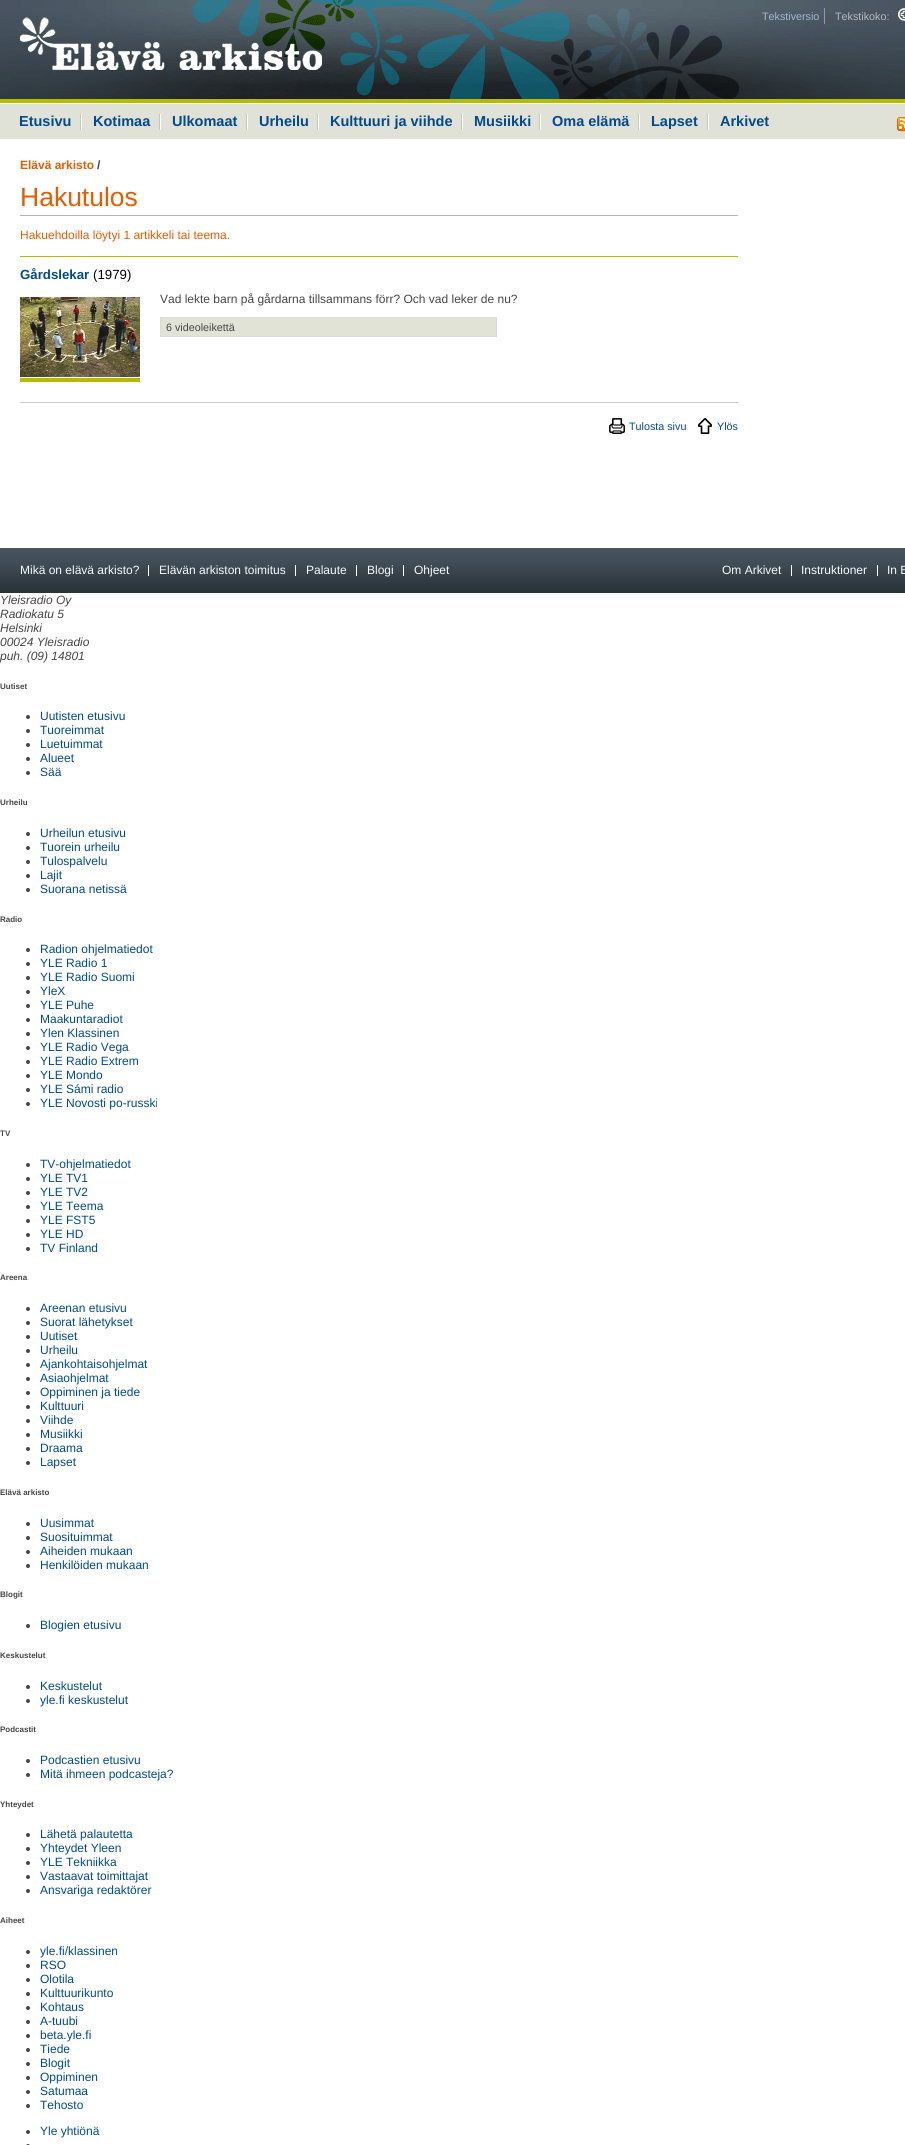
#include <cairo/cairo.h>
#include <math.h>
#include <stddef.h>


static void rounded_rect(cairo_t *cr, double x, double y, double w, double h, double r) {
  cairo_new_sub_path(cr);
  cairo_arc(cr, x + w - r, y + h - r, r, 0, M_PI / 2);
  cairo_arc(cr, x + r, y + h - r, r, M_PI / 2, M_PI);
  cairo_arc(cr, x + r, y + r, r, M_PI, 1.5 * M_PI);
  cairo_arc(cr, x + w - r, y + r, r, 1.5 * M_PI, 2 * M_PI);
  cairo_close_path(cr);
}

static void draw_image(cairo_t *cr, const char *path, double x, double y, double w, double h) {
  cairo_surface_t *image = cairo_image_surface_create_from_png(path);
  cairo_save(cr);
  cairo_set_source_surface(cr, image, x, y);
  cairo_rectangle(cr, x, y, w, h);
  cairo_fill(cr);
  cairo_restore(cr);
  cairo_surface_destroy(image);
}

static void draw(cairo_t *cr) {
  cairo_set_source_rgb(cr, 1, 1, 1);
  cairo_paint(cr);
  draw_image(cr, "images/1.png", 0, 0, 905, 99);
  cairo_set_source_rgb(cr, 181 / 255.0, 188 / 255.0, 0);
  cairo_rectangle(cr, 0, 99, 905, 4);
  cairo_fill(cr);
  cairo_set_source_rgb(cr, 153 / 255.0, 153 / 255.0, 153 / 255.0);
  cairo_rectangle(cr, 824, 8, 1, 16);
  cairo_fill(cr);
  draw_image(cr, "images/2.png", 898, 8, 7, 13);
  cairo_set_source_rgb(cr, 225 / 255.0, 226 / 255.0, 215 / 255.0);
  cairo_rectangle(cr, 0, 104, 905, 35);
  cairo_fill(cr);
  cairo_set_source_rgb(cr, 250 / 255.0, 251 / 255.0, 245 / 255.0);
  cairo_rectangle(cr, 0, 103, 905, 1);
  cairo_fill(cr);
  draw_image(cr, "images/3.png", 80, 114, 2, 16);
  draw_image(cr, "images/3.png", 159, 114, 2, 16);
  draw_image(cr, "images/3.png", 246, 114, 2, 16);
  draw_image(cr, "images/3.png", 317, 114, 2, 16);
  draw_image(cr, "images/3.png", 461, 114, 2, 16);
  draw_image(cr, "images/3.png", 539, 114, 2, 16);
  draw_image(cr, "images/3.png", 638, 114, 2, 16);
  draw_image(cr, "images/3.png", 707, 114, 2, 16);
  draw_image(cr, "images/4.png", 897, 117, 8, 15);
  cairo_set_source_rgb(cr, 181 / 255.0, 181 / 255.0, 181 / 255.0);
  cairo_rectangle(cr, 20, 215, 718, 1);
  cairo_fill(cr);
  cairo_set_source_rgb(cr, 181 / 255.0, 188 / 255.0, 0);
  cairo_rectangle(cr, 20, 256, 718, 1);
  cairo_fill(cr);
  cairo_rectangle(cr, 20, 378, 120, 4);
  cairo_fill(cr);
  draw_image(cr, "images/5.png", 20, 297, 120, 80);
  cairo_set_source_rgb(cr, 225 / 255.0, 227 / 255.0, 214 / 255.0);
  cairo_rectangle(cr, 160.5, 317.5, 336, 19);
  cairo_fill_preserve(cr);
  cairo_set_source_rgb(cr, 220 / 255.0, 218 / 255.0, 218 / 255.0);
  cairo_set_line_width(cr, 1);
  cairo_stroke(cr);
  cairo_set_source_rgb(cr, 204 / 255.0, 204 / 255.0, 204 / 255.0);
  cairo_rectangle(cr, 20, 402, 718, 1);
  cairo_fill(cr);
  draw_image(cr, "images/6.png", 609, 418, 16, 16);
  draw_image(cr, "images/7.png", 698, 418, 14, 16);
  draw_image(cr, "images/8.png", 0, 548, 905, 45);
  cairo_set_source_rgb(cr, 245 / 255.0, 250 / 255.0, 1);
  cairo_rectangle(cr, 148, 565, 1, 11);
  cairo_fill(cr);
  cairo_rectangle(cr, 295, 565, 1, 11);
  cairo_fill(cr);
  cairo_rectangle(cr, 356, 565, 1, 11);
  cairo_fill(cr);
  cairo_rectangle(cr, 403, 565, 1, 11);
  cairo_fill(cr);
  cairo_rectangle(cr, 791, 565, 1, 11);
  cairo_fill(cr);
  cairo_rectangle(cr, 877, 565, 1, 11);
  cairo_fill(cr);
  cairo_set_source_rgb(cr, 70 / 255.0, 70 / 255.0, 70 / 255.0);
  cairo_arc(cr, 28, 717, 2, 0, 2 * M_PI);
  cairo_fill(cr);
  cairo_arc(cr, 28, 731, 2, 0, 2 * M_PI);
  cairo_fill(cr);
  cairo_arc(cr, 28, 745, 2, 0, 2 * M_PI);
  cairo_fill(cr);
  cairo_arc(cr, 28, 759, 2, 0, 2 * M_PI);
  cairo_fill(cr);
  cairo_arc(cr, 28, 773, 2, 0, 2 * M_PI);
  cairo_fill(cr);
  cairo_arc(cr, 28, 834, 2, 0, 2 * M_PI);
  cairo_fill(cr);
  cairo_arc(cr, 28, 848, 2, 0, 2 * M_PI);
  cairo_fill(cr);
  cairo_arc(cr, 28, 862, 2, 0, 2 * M_PI);
  cairo_fill(cr);
  cairo_arc(cr, 28, 876, 2, 0, 2 * M_PI);
  cairo_fill(cr);
  cairo_arc(cr, 28, 890, 2, 0, 2 * M_PI);
  cairo_fill(cr);
  cairo_arc(cr, 28, 950, 2, 0, 2 * M_PI);
  cairo_fill(cr);
  cairo_arc(cr, 28, 964, 2, 0, 2 * M_PI);
  cairo_fill(cr);
  cairo_arc(cr, 28, 978, 2, 0, 2 * M_PI);
  cairo_fill(cr);
  cairo_arc(cr, 28, 992, 2, 0, 2 * M_PI);
  cairo_fill(cr);
  cairo_arc(cr, 28, 1006, 2, 0, 2 * M_PI);
  cairo_fill(cr);
  cairo_arc(cr, 28, 1020, 2, 0, 2 * M_PI);
  cairo_fill(cr);
  cairo_arc(cr, 28, 1034, 2, 0, 2 * M_PI);
  cairo_fill(cr);
  cairo_arc(cr, 28, 1048, 2, 0, 2 * M_PI);
  cairo_fill(cr);
  cairo_arc(cr, 28, 1062, 2, 0, 2 * M_PI);
  cairo_fill(cr);
  cairo_arc(cr, 28, 1076, 2, 0, 2 * M_PI);
  cairo_fill(cr);
  cairo_arc(cr, 28, 1090, 2, 0, 2 * M_PI);
  cairo_fill(cr);
  cairo_arc(cr, 28, 1104, 2, 0, 2 * M_PI);
  cairo_fill(cr);
  cairo_arc(cr, 28, 1165, 2, 0, 2 * M_PI);
  cairo_fill(cr);
  cairo_arc(cr, 28, 1179, 2, 0, 2 * M_PI);
  cairo_fill(cr);
  cairo_arc(cr, 28, 1193, 2, 0, 2 * M_PI);
  cairo_fill(cr);
  cairo_arc(cr, 28, 1207, 2, 0, 2 * M_PI);
  cairo_fill(cr);
  cairo_arc(cr, 28, 1221, 2, 0, 2 * M_PI);
  cairo_fill(cr);
  cairo_arc(cr, 28, 1235, 2, 0, 2 * M_PI);
  cairo_fill(cr);
  cairo_arc(cr, 28, 1249, 2, 0, 2 * M_PI);
  cairo_fill(cr);
  cairo_arc(cr, 28, 1309, 2, 0, 2 * M_PI);
  cairo_fill(cr);
  cairo_arc(cr, 28, 1323, 2, 0, 2 * M_PI);
  cairo_fill(cr);
  cairo_arc(cr, 28, 1337, 2, 0, 2 * M_PI);
  cairo_fill(cr);
  cairo_arc(cr, 28, 1351, 2, 0, 2 * M_PI);
  cairo_fill(cr);
  cairo_arc(cr, 28, 1365, 2, 0, 2 * M_PI);
  cairo_fill(cr);
  cairo_arc(cr, 28, 1379, 2, 0, 2 * M_PI);
  cairo_fill(cr);
  cairo_arc(cr, 28, 1393, 2, 0, 2 * M_PI);
  cairo_fill(cr);
  cairo_arc(cr, 28, 1407, 2, 0, 2 * M_PI);
  cairo_fill(cr);
  cairo_arc(cr, 28, 1421, 2, 0, 2 * M_PI);
  cairo_fill(cr);
  cairo_arc(cr, 28, 1435, 2, 0, 2 * M_PI);
  cairo_fill(cr);
  cairo_arc(cr, 28, 1449, 2, 0, 2 * M_PI);
  cairo_fill(cr);
  cairo_arc(cr, 28, 1463, 2, 0, 2 * M_PI);
  cairo_fill(cr);
  cairo_arc(cr, 28, 1524, 2, 0, 2 * M_PI);
  cairo_fill(cr);
  cairo_arc(cr, 28, 1538, 2, 0, 2 * M_PI);
  cairo_fill(cr);
  cairo_arc(cr, 28, 1552, 2, 0, 2 * M_PI);
  cairo_fill(cr);
  cairo_arc(cr, 28, 1566, 2, 0, 2 * M_PI);
  cairo_fill(cr);
  cairo_arc(cr, 28, 1626, 2, 0, 2 * M_PI);
  cairo_fill(cr);
  cairo_arc(cr, 28, 1687, 2, 0, 2 * M_PI);
  cairo_fill(cr);
  cairo_arc(cr, 28, 1701, 2, 0, 2 * M_PI);
  cairo_fill(cr);
  cairo_arc(cr, 28, 1761, 2, 0, 2 * M_PI);
  cairo_fill(cr);
  cairo_arc(cr, 28, 1775, 2, 0, 2 * M_PI);
  cairo_fill(cr);
  cairo_arc(cr, 28, 1835, 2, 0, 2 * M_PI);
  cairo_fill(cr);
  cairo_arc(cr, 28, 1849, 2, 0, 2 * M_PI);
  cairo_fill(cr);
  cairo_arc(cr, 28, 1863, 2, 0, 2 * M_PI);
  cairo_fill(cr);
  cairo_arc(cr, 28, 1877, 2, 0, 2 * M_PI);
  cairo_fill(cr);
  cairo_arc(cr, 28, 1891, 2, 0, 2 * M_PI);
  cairo_fill(cr);
  cairo_arc(cr, 28, 1952, 2, 0, 2 * M_PI);
  cairo_fill(cr);
  cairo_arc(cr, 28, 1966, 2, 0, 2 * M_PI);
  cairo_fill(cr);
  cairo_arc(cr, 28, 1980, 2, 0, 2 * M_PI);
  cairo_fill(cr);
  cairo_arc(cr, 28, 1994, 2, 0, 2 * M_PI);
  cairo_fill(cr);
  cairo_arc(cr, 28, 2008, 2, 0, 2 * M_PI);
  cairo_fill(cr);
  cairo_arc(cr, 28, 2022, 2, 0, 2 * M_PI);
  cairo_fill(cr);
  cairo_arc(cr, 28, 2036, 2, 0, 2 * M_PI);
  cairo_fill(cr);
  cairo_arc(cr, 28, 2050, 2, 0, 2 * M_PI);
  cairo_fill(cr);
  cairo_arc(cr, 28, 2064, 2, 0, 2 * M_PI);
  cairo_fill(cr);
  cairo_arc(cr, 28, 2078, 2, 0, 2 * M_PI);
  cairo_fill(cr);
  cairo_arc(cr, 28, 2092, 2, 0, 2 * M_PI);
  cairo_fill(cr);
  cairo_arc(cr, 28, 2106, 2, 0, 2 * M_PI);
  cairo_fill(cr);
  cairo_arc(cr, 28, 2132, 2, 0, 2 * M_PI);
  cairo_fill(cr);
  rounded_rect(cr, 26, 2144, 4, 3, 2);
  cairo_fill(cr);
  cairo_select_font_face(cr, "Liberation Sans", CAIRO_FONT_SLANT_NORMAL, CAIRO_FONT_WEIGHT_NORMAL);
  cairo_set_font_size(cr, 10.75);
  cairo_set_source_rgb(cr, 163 / 255.0, 184 / 255.0, 209 / 255.0);
  cairo_move_to(cr, 762, 20);
  cairo_show_text(cr, "Tekstiversio");
  cairo_set_source_rgb(cr, 181 / 255.0, 185 / 255.0, 190 / 255.0);
  cairo_move_to(cr, 835, 20);
  cairo_show_text(cr, "Tekstikoko:");
  cairo_select_font_face(cr, "Liberation Sans", CAIRO_FONT_SLANT_NORMAL, CAIRO_FONT_WEIGHT_BOLD);
  cairo_set_font_size(cr, 14.5);
  cairo_set_source_rgb(cr, 1 / 255.0, 73 / 255.0, 145 / 255.0);
  cairo_move_to(cr, 19, 126);
  cairo_show_text(cr, "Etusivu");
  cairo_move_to(cr, 93, 126);
  cairo_show_text(cr, "Kotimaa");
  cairo_move_to(cr, 172, 126);
  cairo_show_text(cr, "Ulkomaat");
  cairo_move_to(cr, 259, 126);
  cairo_show_text(cr, "Urheilu");
  cairo_move_to(cr, 330, 126);
  cairo_show_text(cr, "Kulttuuri ja viihde");
  cairo_move_to(cr, 474, 126);
  cairo_show_text(cr, "Musiikki");
  cairo_move_to(cr, 552, 126);
  cairo_show_text(cr, "Oma elämä");
  cairo_move_to(cr, 651, 126);
  cairo_show_text(cr, "Lapset");
  cairo_move_to(cr, 720, 126);
  cairo_show_text(cr, "Arkivet");
  cairo_set_font_size(cr, 12);
  cairo_set_source_rgb(cr, 230 / 255.0, 92 / 255.0, 0);
  cairo_move_to(cr, 20, 169);
  cairo_show_text(cr, "Elävä arkisto");
  cairo_set_source_rgb(cr, 70 / 255.0, 70 / 255.0, 70 / 255.0);
  cairo_move_to(cr, 97, 169);
  cairo_show_text(cr, "/");
  cairo_select_font_face(cr, "Liberation Sans", CAIRO_FONT_SLANT_NORMAL, CAIRO_FONT_WEIGHT_NORMAL);
  cairo_set_font_size(cr, 26.5);
  cairo_set_source_rgb(cr, 230 / 255.0, 92 / 255.0, 0);
  cairo_move_to(cr, 20, 206);
  cairo_show_text(cr, "Hakutulos");
  cairo_set_font_size(cr, 12);
  cairo_move_to(cr, 20, 239);
  cairo_show_text(cr, "Hakuehdoilla löytyi 1 artikkeli tai teema.");
  cairo_select_font_face(cr, "Liberation Sans", CAIRO_FONT_SLANT_NORMAL, CAIRO_FONT_WEIGHT_BOLD);
  cairo_set_font_size(cr, 13.25);
  cairo_set_source_rgb(cr, 1 / 255.0, 73 / 255.0, 145 / 255.0);
  cairo_move_to(cr, 20, 279);
  cairo_show_text(cr, "Gårdslekar");
  cairo_select_font_face(cr, "Liberation Sans", CAIRO_FONT_SLANT_NORMAL, CAIRO_FONT_WEIGHT_NORMAL);
  cairo_set_source_rgb(cr, 0, 0, 0);
  cairo_move_to(cr, 93, 279);
  cairo_show_text(cr, "(1979)");
  cairo_set_font_size(cr, 12);
  cairo_set_source_rgb(cr, 70 / 255.0, 70 / 255.0, 70 / 255.0);
  cairo_move_to(cr, 160, 303);
  cairo_show_text(cr, "Vad lekte barn på gårdarna tillsammans förr? Och vad leker de nu?");
  cairo_set_font_size(cr, 10.75);
  cairo_move_to(cr, 166, 331);
  cairo_show_text(cr, "6 videoleikettä");
  cairo_set_source_rgb(cr, 1 / 255.0, 73 / 255.0, 145 / 255.0);
  cairo_move_to(cr, 629, 430);
  cairo_show_text(cr, "Tulosta sivu");
  cairo_move_to(cr, 717, 430);
  cairo_show_text(cr, "Ylös");
  cairo_set_font_size(cr, 12);
  cairo_set_source_rgb(cr, 245 / 255.0, 250 / 255.0, 1);
  cairo_move_to(cr, 20, 574);
  cairo_show_text(cr, "Mikä on elävä arkisto?");
  cairo_move_to(cr, 159, 574);
  cairo_show_text(cr, "Elävän arkiston toimitus");
  cairo_move_to(cr, 306, 574);
  cairo_show_text(cr, "Palaute");
  cairo_move_to(cr, 367, 574);
  cairo_show_text(cr, "Blogi");
  cairo_move_to(cr, 414, 574);
  cairo_show_text(cr, "Ohjeet");
  cairo_move_to(cr, 722, 574);
  cairo_show_text(cr, "Om Arkivet");
  cairo_move_to(cr, 801, 574);
  cairo_show_text(cr, "Instruktioner");
  cairo_move_to(cr, 887, 574);
  cairo_show_text(cr, "In E");
  cairo_select_font_face(cr, "Liberation Sans", CAIRO_FONT_SLANT_ITALIC, CAIRO_FONT_WEIGHT_NORMAL);
  cairo_set_source_rgb(cr, 70 / 255.0, 70 / 255.0, 70 / 255.0);
  cairo_move_to(cr, 0, 604);
  cairo_show_text(cr, "Yleisradio Oy");
  cairo_move_to(cr, 0, 618);
  cairo_show_text(cr, "Radiokatu 5");
  cairo_move_to(cr, 0, 632);
  cairo_show_text(cr, "Helsinki");
  cairo_move_to(cr, 0, 646);
  cairo_show_text(cr, "00024 Yleisradio");
  cairo_move_to(cr, 0, 660);
  cairo_show_text(cr, "puh. (09) 14801");
  cairo_select_font_face(cr, "Liberation Sans", CAIRO_FONT_SLANT_NORMAL, CAIRO_FONT_WEIGHT_BOLD);
  cairo_set_font_size(cr, 8);
  cairo_move_to(cr, 0, 689);
  cairo_show_text(cr, "Uutiset");
  cairo_select_font_face(cr, "Liberation Sans", CAIRO_FONT_SLANT_NORMAL, CAIRO_FONT_WEIGHT_NORMAL);
  cairo_set_font_size(cr, 12);
  cairo_set_source_rgb(cr, 1 / 255.0, 73 / 255.0, 145 / 255.0);
  cairo_move_to(cr, 40, 720);
  cairo_show_text(cr, "Uutisten etusivu");
  cairo_move_to(cr, 40, 734);
  cairo_show_text(cr, "Tuoreimmat");
  cairo_move_to(cr, 40, 748);
  cairo_show_text(cr, "Luetuimmat");
  cairo_move_to(cr, 40, 762);
  cairo_show_text(cr, "Alueet");
  cairo_move_to(cr, 40, 776);
  cairo_show_text(cr, "Sää");
  cairo_select_font_face(cr, "Liberation Sans", CAIRO_FONT_SLANT_NORMAL, CAIRO_FONT_WEIGHT_BOLD);
  cairo_set_font_size(cr, 8);
  cairo_set_source_rgb(cr, 70 / 255.0, 70 / 255.0, 70 / 255.0);
  cairo_move_to(cr, 0, 805);
  cairo_show_text(cr, "Urheilu");
  cairo_select_font_face(cr, "Liberation Sans", CAIRO_FONT_SLANT_NORMAL, CAIRO_FONT_WEIGHT_NORMAL);
  cairo_set_font_size(cr, 12);
  cairo_set_source_rgb(cr, 1 / 255.0, 73 / 255.0, 145 / 255.0);
  cairo_move_to(cr, 40, 837);
  cairo_show_text(cr, "Urheilun etusivu");
  cairo_move_to(cr, 40, 851);
  cairo_show_text(cr, "Tuorein urheilu");
  cairo_move_to(cr, 40, 865);
  cairo_show_text(cr, "Tulospalvelu");
  cairo_move_to(cr, 40, 879);
  cairo_show_text(cr, "Lajit");
  cairo_move_to(cr, 40, 893);
  cairo_show_text(cr, "Suorana netissä");
  cairo_select_font_face(cr, "Liberation Sans", CAIRO_FONT_SLANT_NORMAL, CAIRO_FONT_WEIGHT_BOLD);
  cairo_set_font_size(cr, 8);
  cairo_set_source_rgb(cr, 70 / 255.0, 70 / 255.0, 70 / 255.0);
  cairo_move_to(cr, 0, 922);
  cairo_show_text(cr, "Radio");
  cairo_select_font_face(cr, "Liberation Sans", CAIRO_FONT_SLANT_NORMAL, CAIRO_FONT_WEIGHT_NORMAL);
  cairo_set_font_size(cr, 12);
  cairo_set_source_rgb(cr, 1 / 255.0, 73 / 255.0, 145 / 255.0);
  cairo_move_to(cr, 40, 953);
  cairo_show_text(cr, "Radion ohjelmatiedot");
  cairo_move_to(cr, 40, 967);
  cairo_show_text(cr, "YLE Radio 1");
  cairo_move_to(cr, 40, 981);
  cairo_show_text(cr, "YLE Radio Suomi");
  cairo_move_to(cr, 40, 995);
  cairo_show_text(cr, "YleX");
  cairo_move_to(cr, 40, 1009);
  cairo_show_text(cr, "YLE Puhe");
  cairo_move_to(cr, 40, 1023);
  cairo_show_text(cr, "Maakuntaradiot");
  cairo_move_to(cr, 40, 1037);
  cairo_show_text(cr, "Ylen Klassinen");
  cairo_move_to(cr, 40, 1051);
  cairo_show_text(cr, "YLE Radio Vega");
  cairo_move_to(cr, 40, 1065);
  cairo_show_text(cr, "YLE Radio Extrem");
  cairo_move_to(cr, 40, 1079);
  cairo_show_text(cr, "YLE Mondo");
  cairo_move_to(cr, 40, 1093);
  cairo_show_text(cr, "YLE Sámi radio");
  cairo_move_to(cr, 40, 1107);
  cairo_show_text(cr, "YLE Novosti po-russki");
  cairo_select_font_face(cr, "Liberation Sans", CAIRO_FONT_SLANT_NORMAL, CAIRO_FONT_WEIGHT_BOLD);
  cairo_set_font_size(cr, 8);
  cairo_set_source_rgb(cr, 70 / 255.0, 70 / 255.0, 70 / 255.0);
  cairo_move_to(cr, 0, 1136);
  cairo_show_text(cr, "TV");
  cairo_select_font_face(cr, "Liberation Sans", CAIRO_FONT_SLANT_NORMAL, CAIRO_FONT_WEIGHT_NORMAL);
  cairo_set_font_size(cr, 12);
  cairo_set_source_rgb(cr, 1 / 255.0, 73 / 255.0, 145 / 255.0);
  cairo_move_to(cr, 40, 1168);
  cairo_show_text(cr, "TV-ohjelmatiedot");
  cairo_move_to(cr, 40, 1182);
  cairo_show_text(cr, "YLE TV1");
  cairo_move_to(cr, 40, 1196);
  cairo_show_text(cr, "YLE TV2");
  cairo_move_to(cr, 40, 1210);
  cairo_show_text(cr, "YLE Teema");
  cairo_move_to(cr, 40, 1224);
  cairo_show_text(cr, "YLE FST5");
  cairo_move_to(cr, 40, 1238);
  cairo_show_text(cr, "YLE HD");
  cairo_move_to(cr, 40, 1252);
  cairo_show_text(cr, "TV Finland");
  cairo_select_font_face(cr, "Liberation Sans", CAIRO_FONT_SLANT_NORMAL, CAIRO_FONT_WEIGHT_BOLD);
  cairo_set_font_size(cr, 8);
  cairo_set_source_rgb(cr, 70 / 255.0, 70 / 255.0, 70 / 255.0);
  cairo_move_to(cr, 0, 1280);
  cairo_show_text(cr, "Areena");
  cairo_select_font_face(cr, "Liberation Sans", CAIRO_FONT_SLANT_NORMAL, CAIRO_FONT_WEIGHT_NORMAL);
  cairo_set_font_size(cr, 12);
  cairo_set_source_rgb(cr, 1 / 255.0, 73 / 255.0, 145 / 255.0);
  cairo_move_to(cr, 40, 1312);
  cairo_show_text(cr, "Areenan etusivu");
  cairo_move_to(cr, 40, 1326);
  cairo_show_text(cr, "Suorat lähetykset");
  cairo_move_to(cr, 40, 1340);
  cairo_show_text(cr, "Uutiset");
  cairo_move_to(cr, 40, 1354);
  cairo_show_text(cr, "Urheilu");
  cairo_move_to(cr, 40, 1368);
  cairo_show_text(cr, "Ajankohtaisohjelmat");
  cairo_move_to(cr, 40, 1382);
  cairo_show_text(cr, "Asiaohjelmat");
  cairo_move_to(cr, 40, 1396);
  cairo_show_text(cr, "Oppiminen ja tiede");
  cairo_move_to(cr, 40, 1410);
  cairo_show_text(cr, "Kulttuuri");
  cairo_move_to(cr, 40, 1424);
  cairo_show_text(cr, "Viihde");
  cairo_move_to(cr, 40, 1438);
  cairo_show_text(cr, "Musiikki");
  cairo_move_to(cr, 40, 1452);
  cairo_show_text(cr, "Draama");
  cairo_move_to(cr, 40, 1466);
  cairo_show_text(cr, "Lapset");
  cairo_select_font_face(cr, "Liberation Sans", CAIRO_FONT_SLANT_NORMAL, CAIRO_FONT_WEIGHT_BOLD);
  cairo_set_font_size(cr, 8);
  cairo_set_source_rgb(cr, 70 / 255.0, 70 / 255.0, 70 / 255.0);
  cairo_move_to(cr, 0, 1495);
  cairo_show_text(cr, "Elävä arkisto");
  cairo_select_font_face(cr, "Liberation Sans", CAIRO_FONT_SLANT_NORMAL, CAIRO_FONT_WEIGHT_NORMAL);
  cairo_set_font_size(cr, 12);
  cairo_set_source_rgb(cr, 1 / 255.0, 73 / 255.0, 145 / 255.0);
  cairo_move_to(cr, 40, 1527);
  cairo_show_text(cr, "Uusimmat");
  cairo_move_to(cr, 40, 1541);
  cairo_show_text(cr, "Suosituimmat");
  cairo_move_to(cr, 40, 1555);
  cairo_show_text(cr, "Aiheiden mukaan");
  cairo_move_to(cr, 40, 1569);
  cairo_show_text(cr, "Henkilöiden mukaan");
  cairo_select_font_face(cr, "Liberation Sans", CAIRO_FONT_SLANT_NORMAL, CAIRO_FONT_WEIGHT_BOLD);
  cairo_set_font_size(cr, 8);
  cairo_set_source_rgb(cr, 70 / 255.0, 70 / 255.0, 70 / 255.0);
  cairo_move_to(cr, 0, 1597);
  cairo_show_text(cr, "Blogit");
  cairo_select_font_face(cr, "Liberation Sans", CAIRO_FONT_SLANT_NORMAL, CAIRO_FONT_WEIGHT_NORMAL);
  cairo_set_font_size(cr, 12);
  cairo_set_source_rgb(cr, 1 / 255.0, 73 / 255.0, 145 / 255.0);
  cairo_move_to(cr, 40, 1629);
  cairo_show_text(cr, "Blogien etusivu");
  cairo_select_font_face(cr, "Liberation Sans", CAIRO_FONT_SLANT_NORMAL, CAIRO_FONT_WEIGHT_BOLD);
  cairo_set_font_size(cr, 8);
  cairo_set_source_rgb(cr, 70 / 255.0, 70 / 255.0, 70 / 255.0);
  cairo_move_to(cr, 0, 1658);
  cairo_show_text(cr, "Keskustelut");
  cairo_select_font_face(cr, "Liberation Sans", CAIRO_FONT_SLANT_NORMAL, CAIRO_FONT_WEIGHT_NORMAL);
  cairo_set_font_size(cr, 12);
  cairo_set_source_rgb(cr, 1 / 255.0, 73 / 255.0, 145 / 255.0);
  cairo_move_to(cr, 40, 1690);
  cairo_show_text(cr, "Keskustelut");
  cairo_move_to(cr, 40, 1704);
  cairo_show_text(cr, "yle.fi keskustelut");
  cairo_select_font_face(cr, "Liberation Sans", CAIRO_FONT_SLANT_NORMAL, CAIRO_FONT_WEIGHT_BOLD);
  cairo_set_font_size(cr, 8);
  cairo_set_source_rgb(cr, 70 / 255.0, 70 / 255.0, 70 / 255.0);
  cairo_move_to(cr, 0, 1732);
  cairo_show_text(cr, "Podcastit");
  cairo_select_font_face(cr, "Liberation Sans", CAIRO_FONT_SLANT_NORMAL, CAIRO_FONT_WEIGHT_NORMAL);
  cairo_set_font_size(cr, 12);
  cairo_set_source_rgb(cr, 1 / 255.0, 73 / 255.0, 145 / 255.0);
  cairo_move_to(cr, 40, 1764);
  cairo_show_text(cr, "Podcastien etusivu");
  cairo_move_to(cr, 40, 1778);
  cairo_show_text(cr, "Mitä ihmeen podcasteja?");
  cairo_select_font_face(cr, "Liberation Sans", CAIRO_FONT_SLANT_NORMAL, CAIRO_FONT_WEIGHT_BOLD);
  cairo_set_font_size(cr, 8);
  cairo_set_source_rgb(cr, 70 / 255.0, 70 / 255.0, 70 / 255.0);
  cairo_move_to(cr, 0, 1807);
  cairo_show_text(cr, "Yhteydet");
  cairo_select_font_face(cr, "Liberation Sans", CAIRO_FONT_SLANT_NORMAL, CAIRO_FONT_WEIGHT_NORMAL);
  cairo_set_font_size(cr, 12);
  cairo_set_source_rgb(cr, 1 / 255.0, 73 / 255.0, 145 / 255.0);
  cairo_move_to(cr, 40, 1838);
  cairo_show_text(cr, "Lähetä palautetta");
  cairo_move_to(cr, 40, 1852);
  cairo_show_text(cr, "Yhteydet Yleen");
  cairo_move_to(cr, 40, 1866);
  cairo_show_text(cr, "YLE Tekniikka");
  cairo_move_to(cr, 40, 1880);
  cairo_show_text(cr, "Vastaavat toimittajat");
  cairo_move_to(cr, 40, 1894);
  cairo_show_text(cr, "Ansvariga redaktörer");
  cairo_select_font_face(cr, "Liberation Sans", CAIRO_FONT_SLANT_NORMAL, CAIRO_FONT_WEIGHT_BOLD);
  cairo_set_font_size(cr, 8);
  cairo_set_source_rgb(cr, 70 / 255.0, 70 / 255.0, 70 / 255.0);
  cairo_move_to(cr, 0, 1923);
  cairo_show_text(cr, "Aiheet");
  cairo_select_font_face(cr, "Liberation Sans", CAIRO_FONT_SLANT_NORMAL, CAIRO_FONT_WEIGHT_NORMAL);
  cairo_set_font_size(cr, 12);
  cairo_set_source_rgb(cr, 1 / 255.0, 73 / 255.0, 145 / 255.0);
  cairo_move_to(cr, 40, 1955);
  cairo_show_text(cr, "yle.fi/klassinen");
  cairo_move_to(cr, 40, 1969);
  cairo_show_text(cr, "RSO");
  cairo_move_to(cr, 40, 1983);
  cairo_show_text(cr, "Olotila");
  cairo_move_to(cr, 40, 1997);
  cairo_show_text(cr, "Kulttuurikunto");
  cairo_move_to(cr, 40, 2011);
  cairo_show_text(cr, "Kohtaus");
  cairo_move_to(cr, 40, 2025);
  cairo_show_text(cr, "A-tuubi");
  cairo_move_to(cr, 40, 2039);
  cairo_show_text(cr, "beta.yle.fi");
  cairo_move_to(cr, 40, 2053);
  cairo_show_text(cr, "Tiede");
  cairo_move_to(cr, 40, 2067);
  cairo_show_text(cr, "Blogit");
  cairo_move_to(cr, 40, 2081);
  cairo_show_text(cr, "Oppiminen");
  cairo_move_to(cr, 40, 2095);
  cairo_show_text(cr, "Satumaa");
  cairo_move_to(cr, 40, 2109);
  cairo_show_text(cr, "Tehosto");
  cairo_move_to(cr, 40, 2135);
  cairo_show_text(cr, "Yle yhtiönä");
}

int main(void) {
  cairo_surface_t *surface = cairo_image_surface_create(CAIRO_FORMAT_RGB24, 905, 2145);
  cairo_t *cr = cairo_create(surface);
  cairo_font_options_t *options = cairo_font_options_create();
  cairo_font_options_set_hint_metrics(options, CAIRO_HINT_METRICS_OFF);
  cairo_font_options_set_hint_style(options, CAIRO_HINT_STYLE_NONE);
  cairo_set_font_options(cr, options);
  cairo_set_miter_limit(cr, 4);
  draw(cr);
  cairo_surface_write_to_png(surface, "out.png");
  cairo_font_options_destroy(options);
  cairo_destroy(cr);
  cairo_surface_destroy(surface);
  return 0;
}
